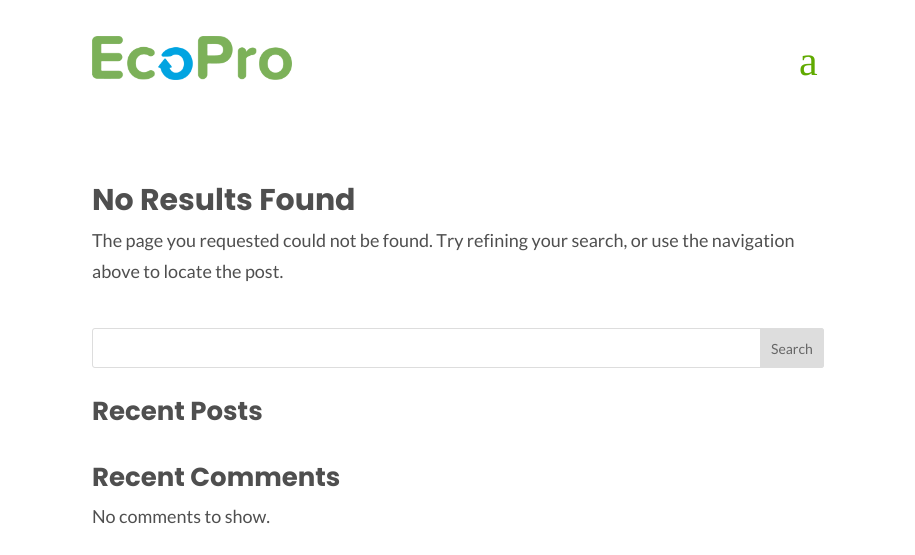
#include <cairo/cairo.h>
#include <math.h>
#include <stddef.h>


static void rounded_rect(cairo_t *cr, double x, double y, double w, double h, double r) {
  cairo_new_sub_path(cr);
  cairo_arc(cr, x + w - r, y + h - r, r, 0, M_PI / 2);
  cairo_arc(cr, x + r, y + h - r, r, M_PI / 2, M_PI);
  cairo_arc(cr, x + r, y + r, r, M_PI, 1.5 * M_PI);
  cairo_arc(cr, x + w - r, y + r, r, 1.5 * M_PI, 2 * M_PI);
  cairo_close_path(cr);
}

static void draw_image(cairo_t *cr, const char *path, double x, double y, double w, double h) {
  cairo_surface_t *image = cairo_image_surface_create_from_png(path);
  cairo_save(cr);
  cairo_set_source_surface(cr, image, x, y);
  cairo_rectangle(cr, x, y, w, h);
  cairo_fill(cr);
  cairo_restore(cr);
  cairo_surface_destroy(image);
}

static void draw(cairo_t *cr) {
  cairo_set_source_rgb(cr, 1, 1, 1);
  cairo_paint(cr);
  draw_image(cr, "images/1.png", 92, 36, 200, 44);
  rounded_rect(cr, 92.5, 328.5, 731, 39, 2.5);
  cairo_set_source_rgb(cr, 221 / 255.0, 221 / 255.0, 221 / 255.0);
  cairo_set_line_width(cr, 1);
  cairo_stroke(cr);
  cairo_new_path(cr);
  cairo_move_to(cr, 760.5, 328.5);
  cairo_line_to(cr, 821, 328.5);
  cairo_curve_to(cr, 822.5, 328.5, 823.5, 329.5, 823.5, 331);
  cairo_line_to(cr, 823.5, 365);
  cairo_curve_to(cr, 823.5, 366.5, 822.5, 367.5, 821, 367.5);
  cairo_line_to(cr, 760.5, 367.5);
  cairo_close_path(cr);
  cairo_fill_preserve(cr);
  cairo_stroke(cr);
  cairo_select_font_face(cr, "Liberation Serif", CAIRO_FONT_SLANT_NORMAL, CAIRO_FONT_WEIGHT_NORMAL);
  cairo_set_font_size(cr, 42);
  cairo_set_source_rgb(cr, 96 / 255.0, 170 / 255.0, 0);
  cairo_move_to(cr, 799, 75);
  cairo_show_text(cr, "a");
  cairo_select_font_face(cr, "Poppins", CAIRO_FONT_SLANT_NORMAL, CAIRO_FONT_WEIGHT_BOLD);
  cairo_set_font_size(cr, 30);
  cairo_set_source_rgb(cr, 79 / 255.0, 79 / 255.0, 79 / 255.0);
  cairo_move_to(cr, 92, 210);
  cairo_show_text(cr, "No Results Found");
  cairo_select_font_face(cr, "Lato", CAIRO_FONT_SLANT_NORMAL, CAIRO_FONT_WEIGHT_NORMAL);
  cairo_set_font_size(cr, 18);
  cairo_move_to(cr, 92, 247);
  cairo_show_text(cr, "The page you requested could not be found. Try refining your search, or use the navigation");
  cairo_move_to(cr, 92, 278);
  cairo_show_text(cr, "above to locate the post.");
  cairo_set_font_size(cr, 14);
  cairo_set_source_rgb(cr, 102 / 255.0, 102 / 255.0, 102 / 255.0);
  cairo_move_to(cr, 771, 354);
  cairo_show_text(cr, "Search");
  cairo_select_font_face(cr, "Poppins", CAIRO_FONT_SLANT_NORMAL, CAIRO_FONT_WEIGHT_BOLD);
  cairo_set_font_size(cr, 26);
  cairo_set_source_rgb(cr, 79 / 255.0, 79 / 255.0, 79 / 255.0);
  cairo_move_to(cr, 92, 420);
  cairo_show_text(cr, "Recent Posts");
  cairo_move_to(cr, 92, 486);
  cairo_show_text(cr, "Recent Comments");
  cairo_select_font_face(cr, "Lato", CAIRO_FONT_SLANT_NORMAL, CAIRO_FONT_WEIGHT_NORMAL);
  cairo_set_font_size(cr, 18);
  cairo_move_to(cr, 92, 523);
  cairo_show_text(cr, "No comments to show.");
}

int main(void) {
  cairo_surface_t *surface = cairo_image_surface_create(CAIRO_FORMAT_RGB24, 915, 555);
  cairo_t *cr = cairo_create(surface);
  cairo_font_options_t *options = cairo_font_options_create();
  cairo_font_options_set_hint_metrics(options, CAIRO_HINT_METRICS_OFF);
  cairo_font_options_set_hint_style(options, CAIRO_HINT_STYLE_NONE);
  cairo_set_font_options(cr, options);
  cairo_set_miter_limit(cr, 4);
  draw(cr);
  cairo_surface_write_to_png(surface, "out.png");
  cairo_font_options_destroy(options);
  cairo_destroy(cr);
  cairo_surface_destroy(surface);
  return 0;
}
